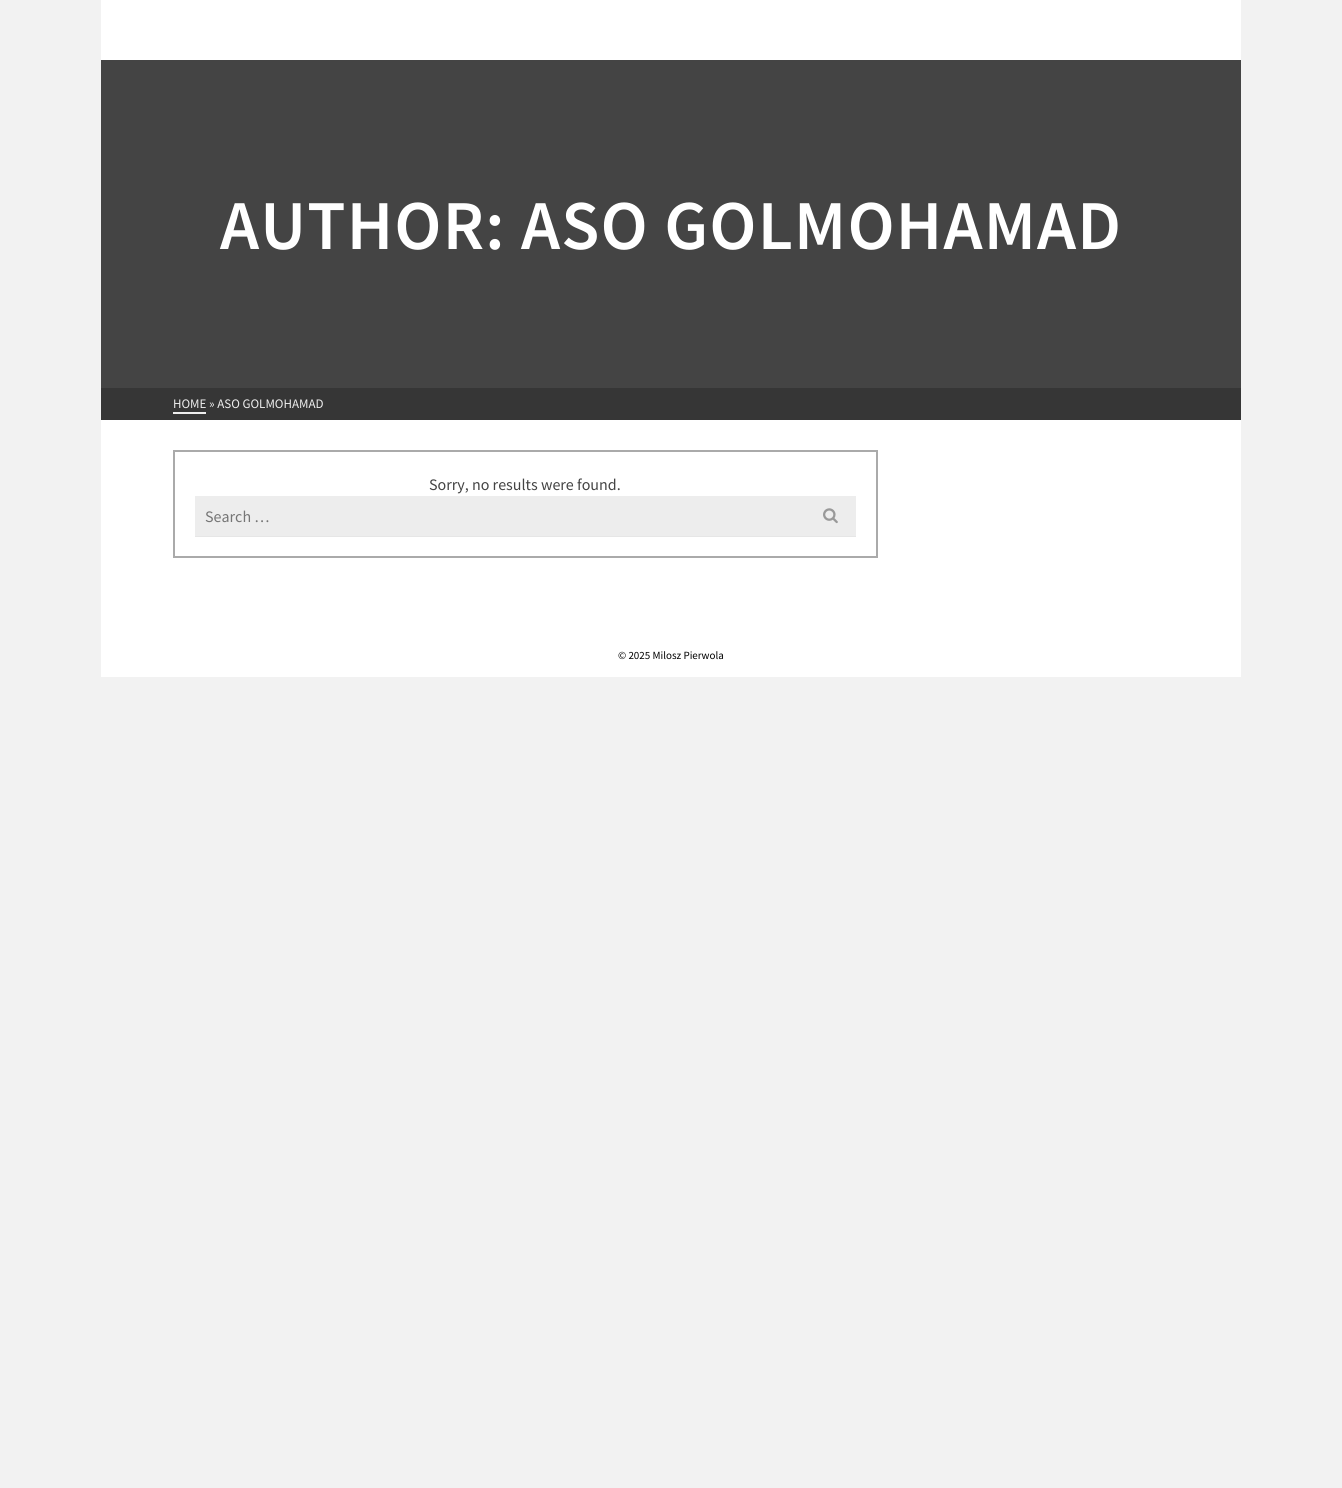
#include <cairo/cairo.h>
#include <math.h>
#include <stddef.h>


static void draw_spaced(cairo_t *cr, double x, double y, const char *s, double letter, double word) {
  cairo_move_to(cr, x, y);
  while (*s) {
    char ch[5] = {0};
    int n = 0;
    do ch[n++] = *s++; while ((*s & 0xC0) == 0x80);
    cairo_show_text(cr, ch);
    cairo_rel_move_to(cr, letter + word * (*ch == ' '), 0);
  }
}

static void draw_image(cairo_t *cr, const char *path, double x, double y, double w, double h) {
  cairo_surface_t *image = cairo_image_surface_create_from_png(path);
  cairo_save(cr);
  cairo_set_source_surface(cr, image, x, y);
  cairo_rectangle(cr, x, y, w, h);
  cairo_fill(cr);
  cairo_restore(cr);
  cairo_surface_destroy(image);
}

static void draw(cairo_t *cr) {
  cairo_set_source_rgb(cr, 242 / 255.0, 242 / 255.0, 242 / 255.0);
  cairo_paint(cr);
  cairo_set_source_rgb(cr, 1, 1, 1);
  cairo_rectangle(cr, 101, 0, 1140, 60);
  cairo_fill(cr);
  cairo_rectangle(cr, 101, 420, 1140, 257);
  cairo_fill(cr);
  cairo_set_source_rgb(cr, 68 / 255.0, 68 / 255.0, 68 / 255.0);
  cairo_rectangle(cr, 101, 60, 1140, 328);
  cairo_fill(cr);
  cairo_set_source_rgb(cr, 54 / 255.0, 54 / 255.0, 54 / 255.0);
  cairo_rectangle(cr, 101, 388, 1140, 32);
  cairo_fill(cr);
  cairo_set_source_rgb(cr, 238 / 255.0, 238 / 255.0, 238 / 255.0);
  cairo_rectangle(cr, 173, 412, 33, 2);
  cairo_fill(cr);
  cairo_rectangle(cr, 174, 451, 703, 106);
  cairo_set_source_rgb(cr, 170 / 255.0, 170 / 255.0, 170 / 255.0);
  cairo_stroke(cr);
  cairo_set_source_rgb(cr, 230 / 255.0, 230 / 255.0, 230 / 255.0);
  cairo_rectangle(cr, 195, 536, 661, 1);
  cairo_fill(cr);
  cairo_set_source_rgb(cr, 237 / 255.0, 237 / 255.0, 237 / 255.0);
  cairo_rectangle(cr, 195, 496, 661, 40);
  cairo_fill(cr);
  draw_image(cr, "images/1.png", 823, 508, 15, 16);
  cairo_select_font_face(cr, "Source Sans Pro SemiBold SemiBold", CAIRO_FONT_SLANT_NORMAL, CAIRO_FONT_WEIGHT_NORMAL);
  cairo_set_font_size(cr, 70);
  cairo_set_source_rgb(cr, 1, 1, 1);
  draw_spaced(cr, 220, 249, "AUTHOR: ASO GOLMOHAMAD", 1.2, 0);
  cairo_select_font_face(cr, "Source Sans Pro", CAIRO_FONT_SLANT_NORMAL, CAIRO_FONT_WEIGHT_NORMAL);
  cairo_set_font_size(cr, 13);
  cairo_set_source_rgb(cr, 238 / 255.0, 238 / 255.0, 238 / 255.0);
  cairo_move_to(cr, 173, 408);
  cairo_show_text(cr, "HOME » ASO GOLMOHAMAD");
  cairo_set_font_size(cr, 16);
  cairo_set_source_rgb(cr, 68 / 255.0, 68 / 255.0, 68 / 255.0);
  cairo_move_to(cr, 429, 490);
  cairo_show_text(cr, "Sorry, no results were found.");
  cairo_set_source_rgb(cr, 117 / 255.0, 117 / 255.0, 117 / 255.0);
  cairo_move_to(cr, 205, 522);
  cairo_show_text(cr, "Search …");
  cairo_set_font_size(cr, 11);
  cairo_set_source_rgb(cr, 0, 0, 0);
  cairo_move_to(cr, 618, 659);
  cairo_show_text(cr, "© 2025 Milosz Pierwola");
}

int main(void) {
  cairo_surface_t *surface = cairo_image_surface_create(CAIRO_FORMAT_RGB24, 1342, 1488);
  cairo_t *cr = cairo_create(surface);
  cairo_font_options_t *options = cairo_font_options_create();
  cairo_font_options_set_hint_metrics(options, CAIRO_HINT_METRICS_OFF);
  cairo_font_options_set_hint_style(options, CAIRO_HINT_STYLE_NONE);
  cairo_set_font_options(cr, options);
  cairo_set_miter_limit(cr, 4);
  draw(cr);
  cairo_surface_write_to_png(surface, "out.png");
  cairo_font_options_destroy(options);
  cairo_destroy(cr);
  cairo_surface_destroy(surface);
  return 0;
}
